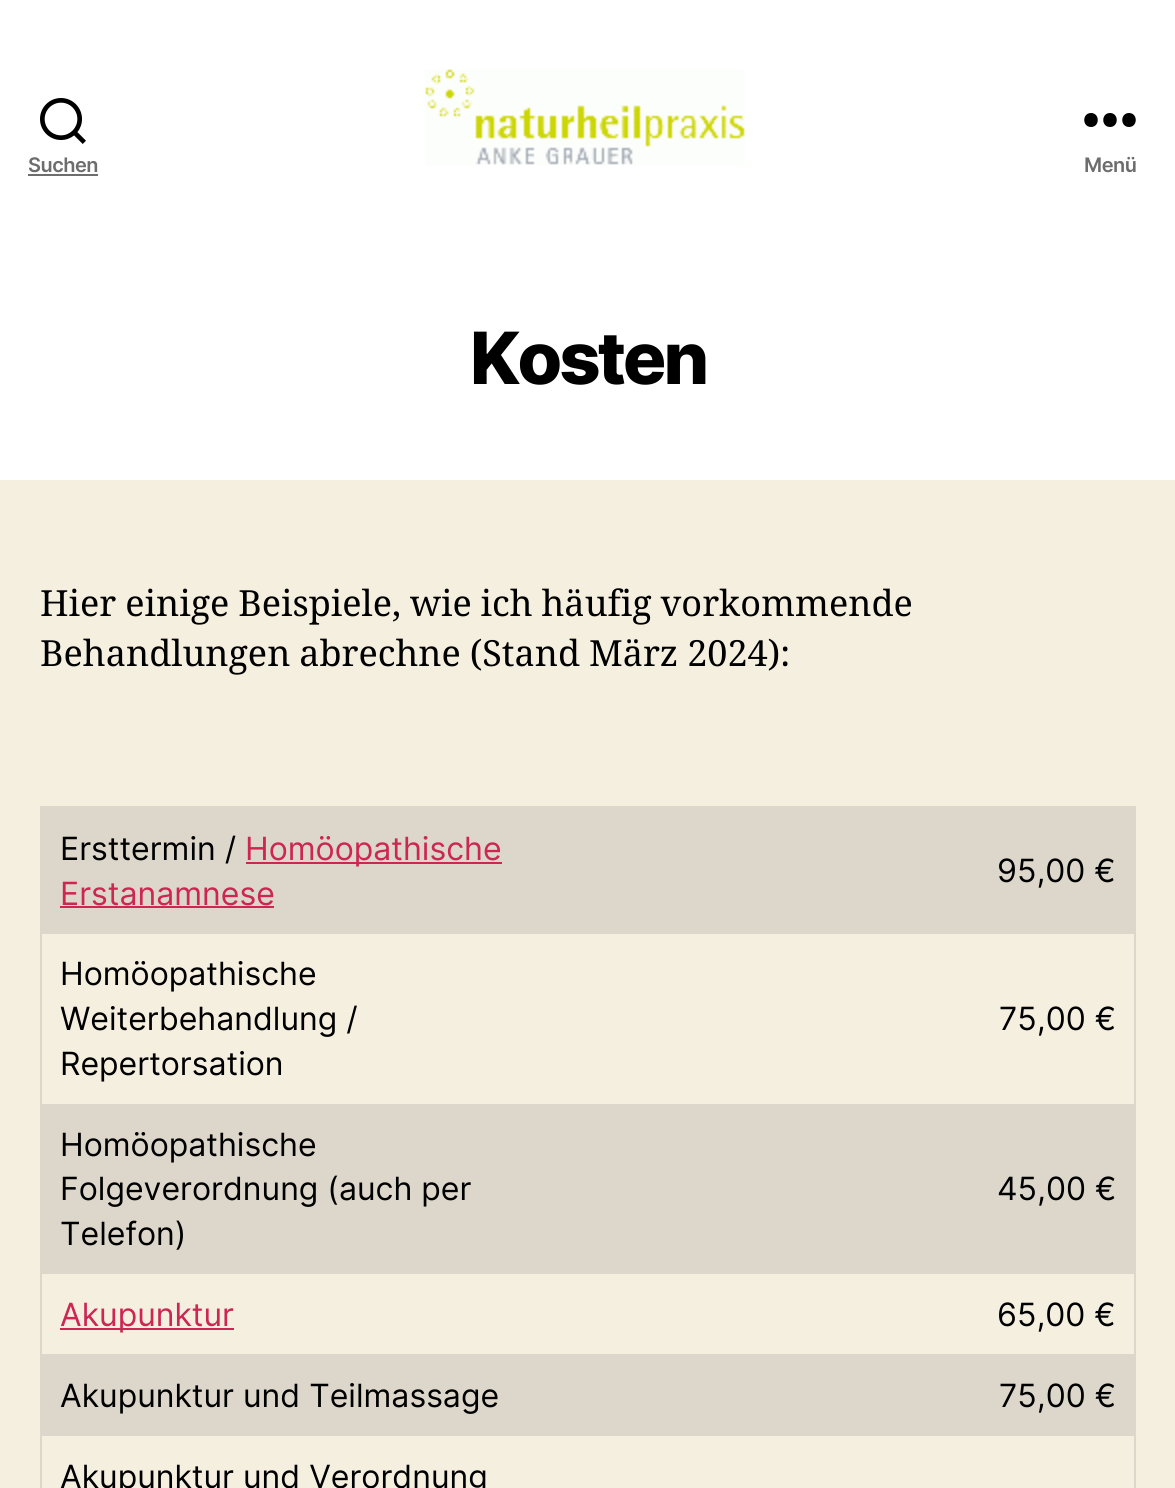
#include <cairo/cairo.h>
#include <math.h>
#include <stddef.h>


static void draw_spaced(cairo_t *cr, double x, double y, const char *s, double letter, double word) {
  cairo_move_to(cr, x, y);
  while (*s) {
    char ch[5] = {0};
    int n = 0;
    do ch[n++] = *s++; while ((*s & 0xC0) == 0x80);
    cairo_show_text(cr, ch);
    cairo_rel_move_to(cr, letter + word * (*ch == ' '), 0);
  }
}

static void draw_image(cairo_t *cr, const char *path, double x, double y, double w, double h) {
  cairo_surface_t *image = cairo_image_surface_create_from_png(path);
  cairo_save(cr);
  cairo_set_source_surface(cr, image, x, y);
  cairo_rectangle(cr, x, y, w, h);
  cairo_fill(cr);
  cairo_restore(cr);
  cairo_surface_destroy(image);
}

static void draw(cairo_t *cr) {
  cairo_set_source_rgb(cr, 245 / 255.0, 239 / 255.0, 224 / 255.0);
  cairo_paint(cr);
  cairo_set_source_rgb(cr, 1, 1, 1);
  cairo_rectangle(cr, 0, 0, 1175, 480);
  cairo_fill(cr);
  draw_image(cr, "images/1.png", 40, 98, 46, 46);
  cairo_set_source_rgb(cr, 109 / 255.0, 109 / 255.0, 109 / 255.0);
  cairo_rectangle(cr, 28, 174, 70, 2);
  cairo_fill(cr);
  draw_image(cr, "images/2.png", 425, 69, 320, 96);
  cairo_set_source_rgb(cr, 0, 0, 0);
  cairo_set_fill_rule(cr, CAIRO_FILL_RULE_EVEN_ODD);
  cairo_new_path(cr);
  cairo_move_to(cr, 1091, 127);
  cairo_curve_to(cr, 1082, 127, 1082, 113, 1091, 113);
  cairo_curve_to(cr, 1100, 113, 1100, 127, 1091, 127);
  cairo_close_path(cr);
  cairo_move_to(cr, 1110, 127);
  cairo_curve_to(cr, 1101, 127, 1101, 113, 1110, 113);
  cairo_curve_to(cr, 1119, 113, 1119, 127, 1110, 127);
  cairo_close_path(cr);
  cairo_move_to(cr, 1129, 127);
  cairo_curve_to(cr, 1120, 127, 1120, 113, 1129, 113);
  cairo_curve_to(cr, 1138, 113, 1138, 127, 1129, 127);
  cairo_close_path(cr);
  cairo_fill(cr);
  cairo_rectangle(cr, 41, 807, 1094, 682);
  cairo_set_source_rgb(cr, 220 / 255.0, 215 / 255.0, 202 / 255.0);
  cairo_stroke(cr);
  cairo_rectangle(cr, 42, 808, 1092, 126);
  cairo_fill(cr);
  cairo_set_source_rgb(cr, 205 / 255.0, 38 / 255.0, 83 / 255.0);
  cairo_rectangle(cr, 246, 862, 256, 2);
  cairo_fill(cr);
  cairo_rectangle(cr, 60, 906, 214, 2);
  cairo_fill(cr);
  cairo_set_source_rgb(cr, 220 / 255.0, 215 / 255.0, 202 / 255.0);
  cairo_rectangle(cr, 42, 1104, 1092, 170);
  cairo_fill(cr);
  cairo_set_source_rgb(cr, 205 / 255.0, 38 / 255.0, 83 / 255.0);
  cairo_rectangle(cr, 60, 1328, 174, 2);
  cairo_fill(cr);
  cairo_set_source_rgb(cr, 220 / 255.0, 215 / 255.0, 202 / 255.0);
  cairo_rectangle(cr, 42, 1354, 1092, 82);
  cairo_fill(cr);
  cairo_select_font_face(cr, "Inter SemiBold", CAIRO_FONT_SLANT_NORMAL, CAIRO_FONT_WEIGHT_NORMAL);
  cairo_set_font_size(cr, 20);
  cairo_set_source_rgb(cr, 109 / 255.0, 109 / 255.0, 109 / 255.0);
  draw_spaced(cr, 28, 172, "Suchen", -0.5, 0);
  draw_spaced(cr, 1084, 172, "Menü", -0.5, 0);
  cairo_select_font_face(cr, "Inter ExtraBold", CAIRO_FONT_SLANT_NORMAL, CAIRO_FONT_WEIGHT_NORMAL);
  cairo_set_font_size(cr, 72);
  cairo_set_source_rgb(cr, 0, 0, 0);
  draw_spaced(cr, 470, 384, "Kosten", -3, 0);
  cairo_select_font_face(cr, "Noto Serif", CAIRO_FONT_SLANT_NORMAL, CAIRO_FONT_WEIGHT_NORMAL);
  cairo_set_font_size(cr, 36);
  draw_spaced(cr, 40, 616, "Hier einige Beispiele, wie ich häufig vorkommende", 0, -0.5);
  draw_spaced(cr, 40, 666, "Behandlungen abrechne (Stand März 2024):", 0, -0.5);
  cairo_select_font_face(cr, "Inter", CAIRO_FONT_SLANT_NORMAL, CAIRO_FONT_WEIGHT_NORMAL);
  cairo_set_font_size(cr, 32);
  cairo_move_to(cr, 60, 860);
  cairo_show_text(cr, "Ersttermin /");
  cairo_set_source_rgb(cr, 205 / 255.0, 38 / 255.0, 83 / 255.0);
  cairo_move_to(cr, 245, 860);
  cairo_show_text(cr, "Homöopathische");
  cairo_move_to(cr, 60, 905);
  cairo_show_text(cr, "Erstanamnese");
  cairo_set_source_rgb(cr, 0, 0, 0);
  cairo_move_to(cr, 997, 882);
  cairo_show_text(cr, "95,00 €");
  cairo_move_to(cr, 60, 985);
  cairo_show_text(cr, "Homöopathische");
  cairo_move_to(cr, 60, 1030);
  cairo_show_text(cr, "Weiterbehandlung /");
  cairo_move_to(cr, 60, 1075);
  cairo_show_text(cr, "Repertorsation");
  cairo_move_to(cr, 999, 1030);
  cairo_show_text(cr, "75,00 €");
  cairo_move_to(cr, 60, 1156);
  cairo_show_text(cr, "Homöopathische");
  cairo_move_to(cr, 60, 1200);
  cairo_show_text(cr, "Folgeverordnung (auch per");
  cairo_move_to(cr, 60, 1245);
  cairo_show_text(cr, "Telefon)");
  cairo_move_to(cr, 997, 1200);
  cairo_show_text(cr, "45,00 €");
  cairo_set_source_rgb(cr, 205 / 255.0, 38 / 255.0, 83 / 255.0);
  cairo_move_to(cr, 60, 1326);
  cairo_show_text(cr, "Akupunktur");
  cairo_set_source_rgb(cr, 0, 0, 0);
  cairo_move_to(cr, 997, 1326);
  cairo_show_text(cr, "65,00 €");
  cairo_move_to(cr, 60, 1407);
  cairo_show_text(cr, "Akupunktur und Teilmassage");
  cairo_move_to(cr, 999, 1407);
  cairo_show_text(cr, "75,00 €");
  cairo_move_to(cr, 60, 1488);
  cairo_show_text(cr, "Akupunktur und Verordnung");
}

int main(void) {
  cairo_surface_t *surface = cairo_image_surface_create(CAIRO_FORMAT_RGB24, 1175, 1488);
  cairo_t *cr = cairo_create(surface);
  cairo_font_options_t *options = cairo_font_options_create();
  cairo_font_options_set_hint_metrics(options, CAIRO_HINT_METRICS_OFF);
  cairo_font_options_set_hint_style(options, CAIRO_HINT_STYLE_NONE);
  cairo_set_font_options(cr, options);
  cairo_set_miter_limit(cr, 4);
  draw(cr);
  cairo_surface_write_to_png(surface, "out.png");
  cairo_font_options_destroy(options);
  cairo_destroy(cr);
  cairo_surface_destroy(surface);
  return 0;
}
